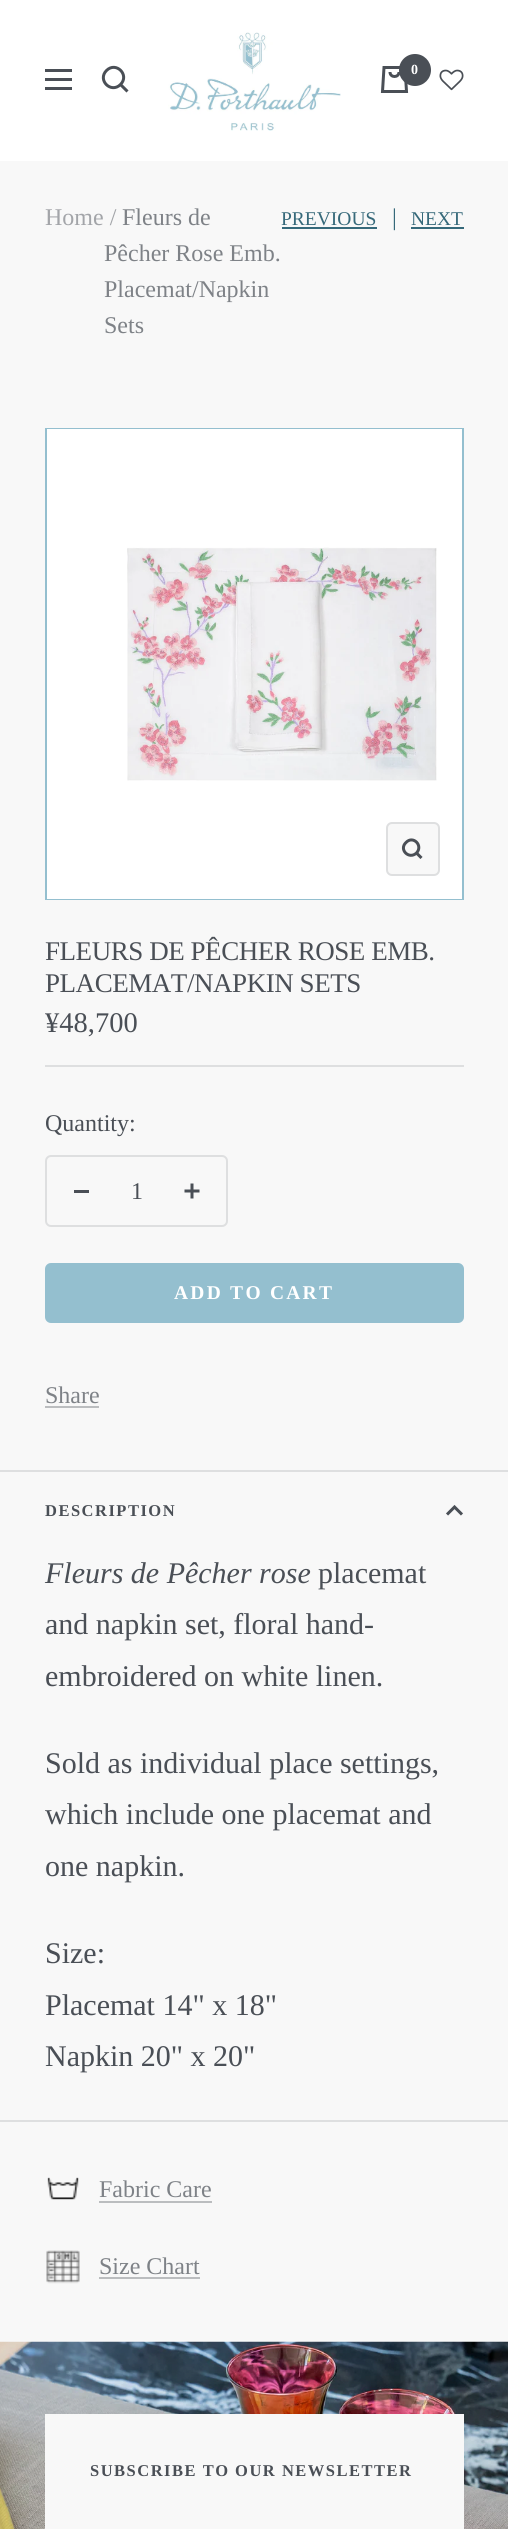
#include <cairo/cairo.h>
#include <math.h>
#include <stddef.h>


static void draw_spaced(cairo_t *cr, double x, double y, const char *s, double letter, double word) {
  cairo_move_to(cr, x, y);
  while (*s) {
    char ch[5] = {0};
    int n = 0;
    do ch[n++] = *s++; while ((*s & 0xC0) == 0x80);
    cairo_show_text(cr, ch);
    cairo_rel_move_to(cr, letter + word * (*ch == ' '), 0);
  }
}

static void rounded_rect(cairo_t *cr, double x, double y, double w, double h, double r) {
  cairo_new_sub_path(cr);
  cairo_arc(cr, x + w - r, y + h - r, r, 0, M_PI / 2);
  cairo_arc(cr, x + r, y + h - r, r, M_PI / 2, M_PI);
  cairo_arc(cr, x + r, y + r, r, M_PI, 1.5 * M_PI);
  cairo_arc(cr, x + w - r, y + r, r, 1.5 * M_PI, 2 * M_PI);
  cairo_close_path(cr);
}

static void draw_image(cairo_t *cr, const char *path, double x, double y, double w, double h) {
  cairo_surface_t *image = cairo_image_surface_create_from_png(path);
  cairo_save(cr);
  cairo_set_source_surface(cr, image, x, y);
  cairo_rectangle(cr, x, y, w, h);
  cairo_fill(cr);
  cairo_restore(cr);
  cairo_surface_destroy(image);
}

static void draw(cairo_t *cr) {
  cairo_set_source_rgb(cr, 248 / 255.0, 248 / 255.0, 248 / 255.0);
  cairo_paint(cr);
  cairo_set_source_rgb(cr, 1, 1, 1);
  cairo_rectangle(cr, 0, 0, 508, 161);
  cairo_fill(cr);
  cairo_new_path(cr);
  cairo_move_to(cr, 45, 70.5);
  cairo_line_to(cr, 72, 70.5);
  cairo_move_to(cr, 45, 88.5);
  cairo_line_to(cr, 72, 88.5);
  cairo_close_path(cr);
  cairo_move_to(cr, 45, 79.5);
  cairo_line_to(cr, 72, 79.5);
  cairo_close_path(cr);
  cairo_set_source_rgb(cr, 74 / 255.0, 79 / 255.0, 86 / 255.0);
  cairo_set_line_width(cr, 3);
  cairo_stroke(cr);
  cairo_new_path(cr);
  cairo_move_to(cr, 120.5, 84.5);
  cairo_curve_to(cr, 130, 75, 116, 61, 106.5, 70.5);
  cairo_curve_to(cr, 97, 80, 111, 94, 120.5, 84.5);
  cairo_close_path(cr);
  cairo_move_to(cr, 120.5, 84.5);
  cairo_line_to(cr, 127.5, 91.5);
  cairo_stroke(cr);
  draw_image(cr, "images/1.png", 168, 32, 173, 99);
  cairo_new_path(cr);
  cairo_move_to(cr, 384, 67.5);
  cairo_line_to(cr, 405, 67.5);
  cairo_line_to(cr, 406.5, 91.5);
  cairo_line_to(cr, 382.5, 91.5);
  cairo_close_path(cr);
  cairo_move_to(cr, 390, 72);
  cairo_curve_to(cr, 390, 78, 399, 78, 399, 72);
  cairo_stroke(cr);
  cairo_arc(cr, 415, 70, 16, 0, 2 * M_PI);
  cairo_fill(cr);
  draw_image(cr, "images/2.png", 439, 69, 25, 22);
  cairo_set_source_rgb(cr, 54 / 255.0, 105 / 255.0, 122 / 255.0);
  cairo_rectangle(cr, 282, 227, 95, 2);
  cairo_fill(cr);
  cairo_rectangle(cr, 411, 227, 53, 2);
  cairo_fill(cr);
  cairo_rectangle(cr, 46, 429, 417, 470);
  cairo_set_source_rgb(cr, 148 / 255.0, 191 / 255.0, 207 / 255.0);
  cairo_set_line_width(cr, 2);
  cairo_stroke(cr);
  cairo_set_source_rgb(cr, 1, 1, 1);
  cairo_rectangle(cr, 47, 429, 415, 470);
  cairo_fill(cr);
  draw_image(cr, "images/3.png", 127, 547, 310, 234);
  cairo_set_source_rgb(cr, 248 / 255.0, 248 / 255.0, 248 / 255.0);
  rounded_rect(cr, 387, 823, 52, 52, 5);
  cairo_fill_preserve(cr);
  cairo_set_source_rgb(cr, 222 / 255.0, 223 / 255.0, 224 / 255.0);
  cairo_stroke(cr);
  cairo_new_path(cr);
  cairo_move_to(cr, 416.5, 853);
  cairo_curve_to(cr, 423.5, 845.5, 413, 835, 406, 842.5);
  cairo_curve_to(cr, 398.5, 849.5, 409, 860, 416.5, 853);
  cairo_close_path(cr);
  cairo_move_to(cr, 416.5, 853);
  cairo_line_to(cr, 421.5, 858);
  cairo_set_source_rgb(cr, 74 / 255.0, 79 / 255.0, 86 / 255.0);
  cairo_set_line_width(cr, 3);
  cairo_stroke(cr);
  cairo_set_source_rgb(cr, 222 / 255.0, 223 / 255.0, 224 / 255.0);
  cairo_rectangle(cr, 45, 1065, 419, 2);
  cairo_fill(cr);
  rounded_rect(cr, 46, 1156, 181, 70, 5);
  cairo_set_line_width(cr, 2);
  cairo_stroke(cr);
  cairo_set_source_rgb(cr, 74 / 255.0, 79 / 255.0, 86 / 255.0);
  cairo_rectangle(cr, 74, 1190, 15, 3);
  cairo_fill(cr);
  draw_image(cr, "images/4.png", 184, 1183, 16, 16);
  cairo_set_source_rgb(cr, 148 / 255.0, 191 / 255.0, 207 / 255.0);
  rounded_rect(cr, 45, 1263, 419, 60, 6);
  cairo_fill(cr);
  cairo_set_source_rgb(cr, 187 / 255.0, 189 / 255.0, 191 / 255.0);
  cairo_rectangle(cr, 45, 1406, 54, 2);
  cairo_fill(cr);
  cairo_set_source_rgb(cr, 222 / 255.0, 223 / 255.0, 224 / 255.0);
  cairo_rectangle(cr, 0, 1470, 508, 2);
  cairo_fill(cr);
  cairo_rectangle(cr, 0, 2120, 508, 2);
  cairo_fill(cr);
  cairo_new_path(cr);
  cairo_move_to(cr, 462, 1514.5);
  cairo_line_to(cr, 454.5, 1507);
  cairo_line_to(cr, 447, 1514.5);
  cairo_set_source_rgb(cr, 74 / 255.0, 79 / 255.0, 86 / 255.0);
  cairo_set_line_width(cr, 3);
  cairo_stroke(cr);
  draw_image(cr, "images/5.png", 47, 2177, 32, 23);
  cairo_set_source_rgb(cr, 187 / 255.0, 189 / 255.0, 191 / 255.0);
  cairo_rectangle(cr, 99, 2201, 113, 2);
  cairo_fill(cr);
  draw_image(cr, "images/6.png", 46, 2250, 34, 34);
  cairo_rectangle(cr, 99, 2277, 101, 2);
  cairo_fill(cr);
  draw_image(cr, "images/7.png", 0, 2341, 508, 188);
  cairo_set_source_rgb(cr, 248 / 255.0, 248 / 255.0, 248 / 255.0);
  cairo_rectangle(cr, 45, 2414, 419, 115);
  cairo_fill(cr);
  cairo_select_font_face(cr, "Liberation Serif", CAIRO_FONT_SLANT_NORMAL, CAIRO_FONT_WEIGHT_BOLD);
  cairo_set_font_size(cr, 14);
  cairo_set_source_rgb(cr, 1, 1, 1);
  cairo_move_to(cr, 411, 74);
  cairo_show_text(cr, "0");
  cairo_select_font_face(cr, "Liberation Serif", CAIRO_FONT_SLANT_NORMAL, CAIRO_FONT_WEIGHT_NORMAL);
  cairo_set_font_size(cr, 24);
  cairo_set_source_rgb(cr, 163 / 255.0, 165 / 255.0, 169 / 255.0);
  cairo_move_to(cr, 45, 225);
  cairo_show_text(cr, "Home /");
  cairo_set_source_rgb(cr, 126 / 255.0, 130 / 255.0, 135 / 255.0);
  cairo_move_to(cr, 122, 225);
  cairo_show_text(cr, "Fleurs de");
  cairo_move_to(cr, 104, 261);
  cairo_show_text(cr, "Pêcher Rose Emb.");
  cairo_move_to(cr, 104, 297);
  cairo_show_text(cr, "Placemat/Napkin");
  cairo_move_to(cr, 104, 333);
  cairo_show_text(cr, "Sets");
  cairo_set_font_size(cr, 19.5);
  cairo_set_source_rgb(cr, 54 / 255.0, 105 / 255.0, 122 / 255.0);
  cairo_move_to(cr, 281, 225);
  cairo_show_text(cr, "PREVIOUS");
  cairo_set_font_size(cr, 24);
  cairo_move_to(cr, 392, 225);
  cairo_show_text(cr, "|");
  cairo_set_font_size(cr, 19.5);
  cairo_move_to(cr, 411, 225);
  cairo_show_text(cr, "NEXT");
  cairo_set_font_size(cr, 27);
  cairo_set_source_rgb(cr, 74 / 255.0, 79 / 255.0, 86 / 255.0);
  draw_spaced(cr, 45, 960, "FLEURS DE PÊCHER ROSE EMB.", -0.45, 0);
  draw_spaced(cr, 45, 992, "PLACEMAT/NAPKIN SETS", -0.45, 0);
  cairo_set_font_size(cr, 28.5);
  cairo_move_to(cr, 45, 1032);
  cairo_show_text(cr, "¥48,700");
  cairo_set_font_size(cr, 24);
  cairo_move_to(cr, 45, 1131);
  cairo_show_text(cr, "Quantity:");
  cairo_move_to(cr, 131, 1199);
  cairo_show_text(cr, "1");
  cairo_select_font_face(cr, "Liberation Serif", CAIRO_FONT_SLANT_NORMAL, CAIRO_FONT_WEIGHT_BOLD);
  cairo_set_font_size(cr, 19.5);
  cairo_set_source_rgb(cr, 1, 1, 1);
  draw_spaced(cr, 174, 1299, "ADD TO CART", 2.25, 0);
  cairo_select_font_face(cr, "Liberation Serif", CAIRO_FONT_SLANT_NORMAL, CAIRO_FONT_WEIGHT_NORMAL);
  cairo_set_font_size(cr, 24);
  cairo_set_source_rgb(cr, 126 / 255.0, 130 / 255.0, 135 / 255.0);
  cairo_move_to(cr, 45, 1403);
  cairo_show_text(cr, "Share");
  cairo_select_font_face(cr, "Liberation Serif", CAIRO_FONT_SLANT_NORMAL, CAIRO_FONT_WEIGHT_BOLD);
  cairo_set_font_size(cr, 16.5);
  cairo_set_source_rgb(cr, 74 / 255.0, 79 / 255.0, 86 / 255.0);
  draw_spaced(cr, 45, 1516, "DESCRIPTION", 1.5, 0);
  cairo_select_font_face(cr, "Liberation Serif", CAIRO_FONT_SLANT_ITALIC, CAIRO_FONT_WEIGHT_NORMAL);
  cairo_set_font_size(cr, 30);
  cairo_move_to(cr, 45, 1583);
  cairo_show_text(cr, "Fleurs de Pêcher rose");
  cairo_select_font_face(cr, "Liberation Serif", CAIRO_FONT_SLANT_NORMAL, CAIRO_FONT_WEIGHT_NORMAL);
  cairo_move_to(cr, 318, 1583);
  cairo_show_text(cr, "placemat");
  cairo_move_to(cr, 45, 1634);
  cairo_show_text(cr, "and napkin set, floral hand-");
  cairo_move_to(cr, 45, 1686);
  cairo_show_text(cr, "embroidered on white linen.");
  cairo_move_to(cr, 45, 1773);
  cairo_show_text(cr, "Sold as individual place settings,");
  cairo_move_to(cr, 45, 1824);
  cairo_show_text(cr, "which include one placemat and");
  cairo_move_to(cr, 45, 1876);
  cairo_show_text(cr, "one napkin.");
  cairo_move_to(cr, 45, 1963);
  cairo_show_text(cr, "Size:");
  cairo_move_to(cr, 45, 2015);
  cairo_show_text(cr, "Placemat 14\" x 18\"");
  cairo_move_to(cr, 45, 2066);
  cairo_show_text(cr, "Napkin 20\" x 20\"");
  cairo_set_font_size(cr, 24);
  cairo_set_source_rgb(cr, 126 / 255.0, 130 / 255.0, 135 / 255.0);
  cairo_move_to(cr, 99, 2197);
  cairo_show_text(cr, "Fabric Care");
  cairo_move_to(cr, 99, 2274);
  cairo_show_text(cr, "Size Chart");
  cairo_select_font_face(cr, "Liberation Serif", CAIRO_FONT_SLANT_NORMAL, CAIRO_FONT_WEIGHT_BOLD);
  cairo_set_font_size(cr, 16.5);
  cairo_set_source_rgb(cr, 74 / 255.0, 79 / 255.0, 86 / 255.0);
  draw_spaced(cr, 90, 2476, "SUBSCRIBE TO OUR NEWSLETTER", 1.5, 0);
}

int main(void) {
  cairo_surface_t *surface = cairo_image_surface_create(CAIRO_FORMAT_RGB24, 508, 2529);
  cairo_t *cr = cairo_create(surface);
  cairo_font_options_t *options = cairo_font_options_create();
  cairo_font_options_set_hint_metrics(options, CAIRO_HINT_METRICS_OFF);
  cairo_font_options_set_hint_style(options, CAIRO_HINT_STYLE_NONE);
  cairo_set_font_options(cr, options);
  cairo_set_miter_limit(cr, 4);
  draw(cr);
  cairo_surface_write_to_png(surface, "out.png");
  cairo_font_options_destroy(options);
  cairo_destroy(cr);
  cairo_surface_destroy(surface);
  return 0;
}
